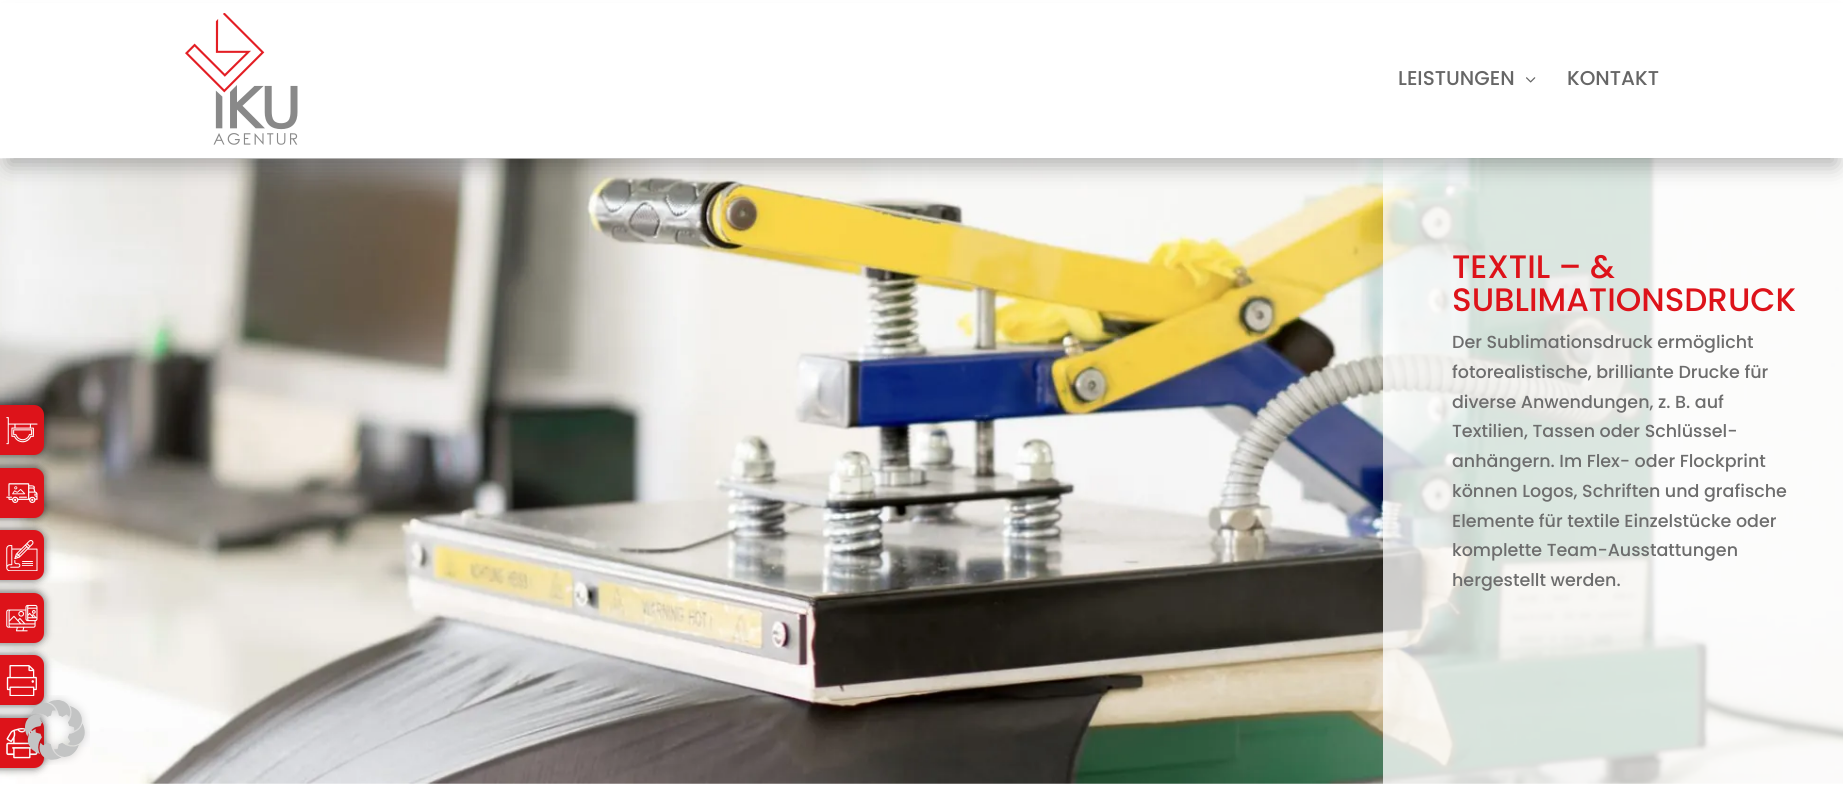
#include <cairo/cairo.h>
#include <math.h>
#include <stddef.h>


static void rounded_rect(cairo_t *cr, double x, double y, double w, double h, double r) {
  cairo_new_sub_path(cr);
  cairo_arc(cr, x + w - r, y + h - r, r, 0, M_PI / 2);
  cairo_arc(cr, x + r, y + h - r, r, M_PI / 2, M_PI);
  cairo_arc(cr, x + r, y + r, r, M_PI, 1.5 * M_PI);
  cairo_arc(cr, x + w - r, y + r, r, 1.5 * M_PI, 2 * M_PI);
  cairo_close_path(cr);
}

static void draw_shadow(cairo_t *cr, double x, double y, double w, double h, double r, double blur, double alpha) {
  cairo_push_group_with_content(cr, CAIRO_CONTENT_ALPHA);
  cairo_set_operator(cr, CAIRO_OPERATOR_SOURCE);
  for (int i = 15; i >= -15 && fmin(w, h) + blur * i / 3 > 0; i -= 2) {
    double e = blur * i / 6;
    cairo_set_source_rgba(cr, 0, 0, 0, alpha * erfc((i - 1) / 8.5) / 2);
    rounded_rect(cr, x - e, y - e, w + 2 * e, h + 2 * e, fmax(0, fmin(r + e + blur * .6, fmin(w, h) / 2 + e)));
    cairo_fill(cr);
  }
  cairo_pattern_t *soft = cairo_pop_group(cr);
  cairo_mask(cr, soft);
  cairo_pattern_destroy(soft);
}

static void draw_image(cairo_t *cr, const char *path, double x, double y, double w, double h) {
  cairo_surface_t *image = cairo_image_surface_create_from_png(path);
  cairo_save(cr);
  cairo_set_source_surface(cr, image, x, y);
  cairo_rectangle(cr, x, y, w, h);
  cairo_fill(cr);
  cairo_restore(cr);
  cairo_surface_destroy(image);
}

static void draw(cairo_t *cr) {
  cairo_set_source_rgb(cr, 1, 1, 1);
  cairo_paint(cr);
  draw_image(cr, "images/9.png", 0, 158, 1843, 626);
  cairo_set_source_rgba(cr, 1, 1, 1, 0.77);
  cairo_rectangle(cr, 1383, 159, 460, 625);
  cairo_fill(cr);
  cairo_set_source_rgb(cr, 0, 0, 0);
  draw_shadow(cr, 8, 23, 1828, 142, 0, 11, 0.3);
  cairo_set_source_rgb(cr, 1, 1, 1);
  cairo_rectangle(cr, 0, 3, 1843, 155);
  cairo_fill(cr);
  draw_image(cr, "images/1.png", 185, 13, 113, 132);
  draw_image(cr, "images/2.png", 1526, 77, 10, 6);
  cairo_set_source_rgb(cr, 0, 0, 0);
  draw_shadow(cr, -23, 404, 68, 52, 11, 4, 0.5);
  cairo_set_source_rgb(cr, 221 / 255.0, 19 / 255.0, 26 / 255.0);
  rounded_rect(cr, -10, 405, 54, 50, 10);
  cairo_fill(cr);
  draw_image(cr, "images/3.png", 6, 417, 32, 28);
  cairo_set_source_rgb(cr, 0, 0, 0);
  draw_shadow(cr, -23, 466, 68, 53, 11, 4, 0.5);
  cairo_set_source_rgb(cr, 221 / 255.0, 19 / 255.0, 26 / 255.0);
  rounded_rect(cr, -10, 468, 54, 50, 10);
  cairo_fill(cr);
  draw_image(cr, "images/4.png", 6, 483, 32, 20);
  cairo_set_source_rgb(cr, 0, 0, 0);
  draw_shadow(cr, -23, 529, 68, 52, 11, 4, 0.5);
  cairo_set_source_rgb(cr, 221 / 255.0, 19 / 255.0, 26 / 255.0);
  rounded_rect(cr, -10, 530, 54, 50, 10);
  cairo_fill(cr);
  draw_image(cr, "images/5.png", 6, 540, 32, 31);
  cairo_set_source_rgb(cr, 0, 0, 0);
  draw_shadow(cr, -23, 591, 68, 53, 11, 4, 0.5);
  cairo_set_source_rgb(cr, 221 / 255.0, 19 / 255.0, 26 / 255.0);
  rounded_rect(cr, -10, 593, 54, 50, 10);
  cairo_fill(cr);
  draw_image(cr, "images/6.png", 6, 604, 32, 28);
  cairo_set_source_rgb(cr, 0, 0, 0);
  draw_shadow(cr, -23, 654, 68, 52, 11, 4, 0.5);
  cairo_set_source_rgb(cr, 221 / 255.0, 19 / 255.0, 26 / 255.0);
  rounded_rect(cr, -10, 655, 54, 50, 10);
  cairo_fill(cr);
  draw_image(cr, "images/7.png", 6, 665, 31, 31);
  cairo_set_source_rgb(cr, 0, 0, 0);
  draw_shadow(cr, -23, 716, 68, 53, 11, 4, 0.5);
  cairo_set_source_rgb(cr, 221 / 255.0, 19 / 255.0, 26 / 255.0);
  rounded_rect(cr, -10, 718, 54, 50, 10);
  cairo_fill(cr);
  draw_image(cr, "images/8.png", 6, 728, 32, 31);
  draw_image(cr, "images/10.png", 20, 695, 70, 70);
  cairo_select_font_face(cr, "Poppins Medium", CAIRO_FONT_SLANT_NORMAL, CAIRO_FONT_WEIGHT_NORMAL);
  cairo_set_font_size(cr, 20);
  cairo_set_source_rgb(cr, 102 / 255.0, 102 / 255.0, 102 / 255.0);
  cairo_move_to(cr, 1398, 85);
  cairo_show_text(cr, "LEISTUNGEN");
  cairo_move_to(cr, 1567, 85);
  cairo_show_text(cr, "KONTAKT");
  cairo_set_font_size(cr, 32.5);
  cairo_set_source_rgb(cr, 221 / 255.0, 19 / 255.0, 26 / 255.0);
  cairo_move_to(cr, 1452, 278);
  cairo_show_text(cr, "TEXTIL – &");
  cairo_move_to(cr, 1452, 311);
  cairo_show_text(cr, "SUBLIMATIONSDRUCK");
  cairo_set_font_size(cr, 17.5);
  cairo_set_source_rgb(cr, 109 / 255.0, 109 / 255.0, 109 / 255.0);
  cairo_move_to(cr, 1452, 348);
  cairo_show_text(cr, "Der Sublimationsdruck ermöglicht");
  cairo_move_to(cr, 1452, 378);
  cairo_show_text(cr, "fotorealistische, brilliante Drucke für");
  cairo_move_to(cr, 1452, 408);
  cairo_show_text(cr, "diverse Anwendungen, z. B. auf");
  cairo_move_to(cr, 1452, 437);
  cairo_show_text(cr, "Textilien, Tassen oder Schlüssel-");
  cairo_move_to(cr, 1452, 467);
  cairo_show_text(cr, "anhängern. Im Flex- oder Flockprint");
  cairo_move_to(cr, 1452, 497);
  cairo_show_text(cr, "können Logos, Schriften und grafische");
  cairo_move_to(cr, 1452, 527);
  cairo_show_text(cr, "Elemente für textile Einzelstücke oder");
  cairo_move_to(cr, 1452, 556);
  cairo_show_text(cr, "komplette Team-Ausstattungen");
  cairo_move_to(cr, 1452, 586);
  cairo_show_text(cr, "hergestellt werden.");
}

int main(void) {
  cairo_surface_t *surface = cairo_image_surface_create(CAIRO_FORMAT_RGB24, 1843, 785);
  cairo_t *cr = cairo_create(surface);
  cairo_font_options_t *options = cairo_font_options_create();
  cairo_font_options_set_hint_metrics(options, CAIRO_HINT_METRICS_OFF);
  cairo_font_options_set_hint_style(options, CAIRO_HINT_STYLE_NONE);
  cairo_set_font_options(cr, options);
  cairo_set_miter_limit(cr, 4);
  draw(cr);
  cairo_surface_write_to_png(surface, "out.png");
  cairo_font_options_destroy(options);
  cairo_destroy(cr);
  cairo_surface_destroy(surface);
  return 0;
}
